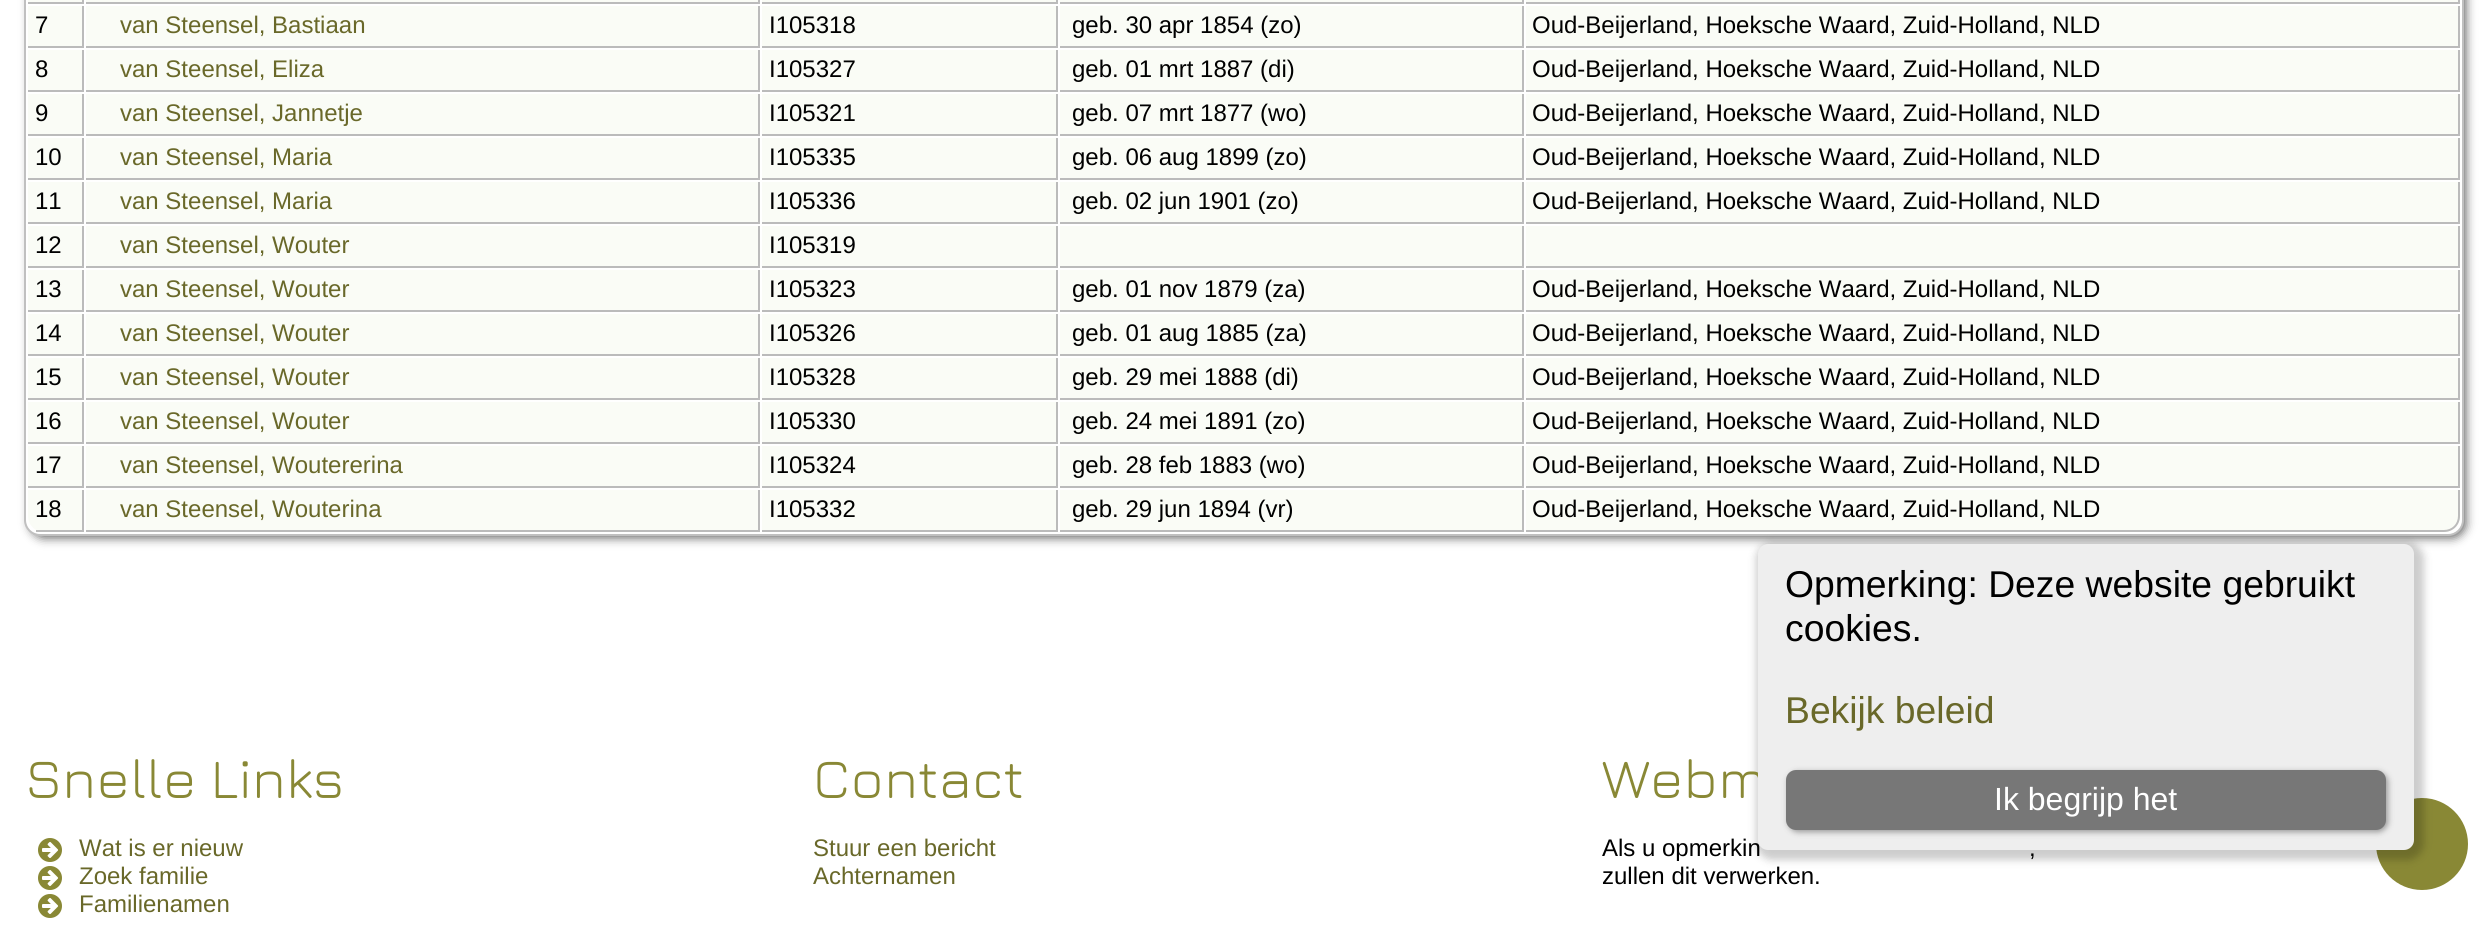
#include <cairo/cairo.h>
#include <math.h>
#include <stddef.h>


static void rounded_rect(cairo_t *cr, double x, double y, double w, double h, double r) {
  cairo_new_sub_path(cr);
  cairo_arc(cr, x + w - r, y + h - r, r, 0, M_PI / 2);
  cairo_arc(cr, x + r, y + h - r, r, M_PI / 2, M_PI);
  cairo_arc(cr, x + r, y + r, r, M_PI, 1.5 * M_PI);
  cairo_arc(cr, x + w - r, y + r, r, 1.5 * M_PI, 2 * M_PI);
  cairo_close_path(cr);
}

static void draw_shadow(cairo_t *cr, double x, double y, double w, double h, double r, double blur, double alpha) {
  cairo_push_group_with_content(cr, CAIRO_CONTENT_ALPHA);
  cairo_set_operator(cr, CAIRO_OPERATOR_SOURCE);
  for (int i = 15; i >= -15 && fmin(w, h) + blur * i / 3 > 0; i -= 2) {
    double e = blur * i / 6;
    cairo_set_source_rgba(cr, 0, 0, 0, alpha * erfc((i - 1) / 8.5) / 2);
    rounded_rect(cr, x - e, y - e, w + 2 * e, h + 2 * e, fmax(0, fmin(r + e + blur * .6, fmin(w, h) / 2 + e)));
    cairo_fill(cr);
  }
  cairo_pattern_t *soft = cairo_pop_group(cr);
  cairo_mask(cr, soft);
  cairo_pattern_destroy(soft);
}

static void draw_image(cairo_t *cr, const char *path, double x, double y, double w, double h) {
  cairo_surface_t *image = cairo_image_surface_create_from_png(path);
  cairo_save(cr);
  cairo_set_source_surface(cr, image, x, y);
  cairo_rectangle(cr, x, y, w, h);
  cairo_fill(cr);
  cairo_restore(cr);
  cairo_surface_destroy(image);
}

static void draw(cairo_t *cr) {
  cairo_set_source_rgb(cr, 1, 1, 1);
  cairo_paint(cr);
  cairo_set_source_rgb(cr, 102 / 255.0, 102 / 255.0, 102 / 255.0);
  draw_shadow(cr, 30, -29, 2436, 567, 14, 5, 1);
  cairo_set_source_rgb(cr, 1, 1, 1);
  rounded_rect(cr, 25, -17, 2438, 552, 15);
  cairo_fill_preserve(cr);
  cairo_set_source_rgb(cr, 192 / 255.0, 192 / 255.0, 192 / 255.0);
  cairo_stroke(cr);
  cairo_set_source_rgb(cr, 250 / 255.0, 252 / 255.0, 246 / 255.0);
  cairo_rectangle(cr, 28, 0, 56, 2);
  cairo_fill(cr);
  cairo_set_source_rgb(cr, 187 / 255.0, 187 / 255.0, 187 / 255.0);
  cairo_rectangle(cr, 82, 0, 2, 4);
  cairo_fill(cr);
  cairo_rectangle(cr, 28, 2, 56, 2);
  cairo_fill(cr);
  cairo_set_source_rgb(cr, 250 / 255.0, 252 / 255.0, 246 / 255.0);
  cairo_rectangle(cr, 86, 0, 674, 2);
  cairo_fill(cr);
  cairo_set_source_rgb(cr, 187 / 255.0, 187 / 255.0, 187 / 255.0);
  cairo_rectangle(cr, 758, 0, 2, 4);
  cairo_fill(cr);
  cairo_rectangle(cr, 86, 2, 674, 2);
  cairo_fill(cr);
  cairo_set_source_rgb(cr, 250 / 255.0, 252 / 255.0, 246 / 255.0);
  cairo_rectangle(cr, 762, 0, 296, 2);
  cairo_fill(cr);
  cairo_set_source_rgb(cr, 187 / 255.0, 187 / 255.0, 187 / 255.0);
  cairo_rectangle(cr, 1056, 0, 2, 4);
  cairo_fill(cr);
  cairo_rectangle(cr, 762, 2, 296, 2);
  cairo_fill(cr);
  cairo_set_source_rgb(cr, 250 / 255.0, 252 / 255.0, 246 / 255.0);
  cairo_rectangle(cr, 1060, 0, 464, 2);
  cairo_fill(cr);
  cairo_set_source_rgb(cr, 187 / 255.0, 187 / 255.0, 187 / 255.0);
  cairo_rectangle(cr, 1522, 0, 2, 4);
  cairo_fill(cr);
  cairo_rectangle(cr, 1060, 2, 464, 2);
  cairo_fill(cr);
  cairo_set_source_rgb(cr, 250 / 255.0, 252 / 255.0, 246 / 255.0);
  cairo_rectangle(cr, 1526, 0, 934, 2);
  cairo_fill(cr);
  cairo_set_source_rgb(cr, 187 / 255.0, 187 / 255.0, 187 / 255.0);
  cairo_rectangle(cr, 2458, 0, 2, 4);
  cairo_fill(cr);
  cairo_rectangle(cr, 1526, 2, 934, 2);
  cairo_fill(cr);
  cairo_set_source_rgb(cr, 250 / 255.0, 252 / 255.0, 246 / 255.0);
  cairo_rectangle(cr, 28, 6, 54, 40);
  cairo_fill(cr);
  cairo_set_source_rgb(cr, 187 / 255.0, 187 / 255.0, 187 / 255.0);
  cairo_rectangle(cr, 82, 6, 2, 42);
  cairo_fill(cr);
  cairo_rectangle(cr, 28, 46, 56, 2);
  cairo_fill(cr);
  cairo_set_source_rgb(cr, 250 / 255.0, 252 / 255.0, 246 / 255.0);
  cairo_rectangle(cr, 86, 6, 672, 40);
  cairo_fill(cr);
  cairo_set_source_rgb(cr, 187 / 255.0, 187 / 255.0, 187 / 255.0);
  cairo_rectangle(cr, 758, 6, 2, 42);
  cairo_fill(cr);
  cairo_rectangle(cr, 86, 46, 674, 2);
  cairo_fill(cr);
  cairo_set_source_rgb(cr, 250 / 255.0, 252 / 255.0, 246 / 255.0);
  cairo_rectangle(cr, 762, 6, 294, 40);
  cairo_fill(cr);
  cairo_set_source_rgb(cr, 187 / 255.0, 187 / 255.0, 187 / 255.0);
  cairo_rectangle(cr, 1056, 6, 2, 42);
  cairo_fill(cr);
  cairo_rectangle(cr, 762, 46, 296, 2);
  cairo_fill(cr);
  cairo_set_source_rgb(cr, 250 / 255.0, 252 / 255.0, 246 / 255.0);
  cairo_rectangle(cr, 1060, 6, 462, 40);
  cairo_fill(cr);
  cairo_set_source_rgb(cr, 187 / 255.0, 187 / 255.0, 187 / 255.0);
  cairo_rectangle(cr, 1522, 6, 2, 42);
  cairo_fill(cr);
  cairo_rectangle(cr, 1060, 46, 464, 2);
  cairo_fill(cr);
  cairo_set_source_rgb(cr, 250 / 255.0, 252 / 255.0, 246 / 255.0);
  cairo_rectangle(cr, 1526, 6, 932, 40);
  cairo_fill(cr);
  cairo_set_source_rgb(cr, 187 / 255.0, 187 / 255.0, 187 / 255.0);
  cairo_rectangle(cr, 2458, 6, 2, 42);
  cairo_fill(cr);
  cairo_rectangle(cr, 1526, 46, 934, 2);
  cairo_fill(cr);
  cairo_set_source_rgb(cr, 250 / 255.0, 252 / 255.0, 246 / 255.0);
  cairo_rectangle(cr, 28, 50, 54, 40);
  cairo_fill(cr);
  cairo_set_source_rgb(cr, 187 / 255.0, 187 / 255.0, 187 / 255.0);
  cairo_rectangle(cr, 82, 50, 2, 42);
  cairo_fill(cr);
  cairo_rectangle(cr, 28, 90, 56, 2);
  cairo_fill(cr);
  cairo_set_source_rgb(cr, 250 / 255.0, 252 / 255.0, 246 / 255.0);
  cairo_rectangle(cr, 86, 50, 672, 40);
  cairo_fill(cr);
  cairo_set_source_rgb(cr, 187 / 255.0, 187 / 255.0, 187 / 255.0);
  cairo_rectangle(cr, 758, 50, 2, 42);
  cairo_fill(cr);
  cairo_rectangle(cr, 86, 90, 674, 2);
  cairo_fill(cr);
  cairo_set_source_rgb(cr, 250 / 255.0, 252 / 255.0, 246 / 255.0);
  cairo_rectangle(cr, 762, 50, 294, 40);
  cairo_fill(cr);
  cairo_set_source_rgb(cr, 187 / 255.0, 187 / 255.0, 187 / 255.0);
  cairo_rectangle(cr, 1056, 50, 2, 42);
  cairo_fill(cr);
  cairo_rectangle(cr, 762, 90, 296, 2);
  cairo_fill(cr);
  cairo_set_source_rgb(cr, 250 / 255.0, 252 / 255.0, 246 / 255.0);
  cairo_rectangle(cr, 1060, 50, 462, 40);
  cairo_fill(cr);
  cairo_set_source_rgb(cr, 187 / 255.0, 187 / 255.0, 187 / 255.0);
  cairo_rectangle(cr, 1522, 50, 2, 42);
  cairo_fill(cr);
  cairo_rectangle(cr, 1060, 90, 464, 2);
  cairo_fill(cr);
  cairo_set_source_rgb(cr, 250 / 255.0, 252 / 255.0, 246 / 255.0);
  cairo_rectangle(cr, 1526, 50, 932, 40);
  cairo_fill(cr);
  cairo_set_source_rgb(cr, 187 / 255.0, 187 / 255.0, 187 / 255.0);
  cairo_rectangle(cr, 2458, 50, 2, 42);
  cairo_fill(cr);
  cairo_rectangle(cr, 1526, 90, 934, 2);
  cairo_fill(cr);
  cairo_set_source_rgb(cr, 250 / 255.0, 252 / 255.0, 246 / 255.0);
  cairo_rectangle(cr, 28, 94, 54, 40);
  cairo_fill(cr);
  cairo_set_source_rgb(cr, 187 / 255.0, 187 / 255.0, 187 / 255.0);
  cairo_rectangle(cr, 82, 94, 2, 42);
  cairo_fill(cr);
  cairo_rectangle(cr, 28, 134, 56, 2);
  cairo_fill(cr);
  cairo_set_source_rgb(cr, 250 / 255.0, 252 / 255.0, 246 / 255.0);
  cairo_rectangle(cr, 86, 94, 672, 40);
  cairo_fill(cr);
  cairo_set_source_rgb(cr, 187 / 255.0, 187 / 255.0, 187 / 255.0);
  cairo_rectangle(cr, 758, 94, 2, 42);
  cairo_fill(cr);
  cairo_rectangle(cr, 86, 134, 674, 2);
  cairo_fill(cr);
  cairo_set_source_rgb(cr, 250 / 255.0, 252 / 255.0, 246 / 255.0);
  cairo_rectangle(cr, 762, 94, 294, 40);
  cairo_fill(cr);
  cairo_set_source_rgb(cr, 187 / 255.0, 187 / 255.0, 187 / 255.0);
  cairo_rectangle(cr, 1056, 94, 2, 42);
  cairo_fill(cr);
  cairo_rectangle(cr, 762, 134, 296, 2);
  cairo_fill(cr);
  cairo_set_source_rgb(cr, 250 / 255.0, 252 / 255.0, 246 / 255.0);
  cairo_rectangle(cr, 1060, 94, 462, 40);
  cairo_fill(cr);
  cairo_set_source_rgb(cr, 187 / 255.0, 187 / 255.0, 187 / 255.0);
  cairo_rectangle(cr, 1522, 94, 2, 42);
  cairo_fill(cr);
  cairo_rectangle(cr, 1060, 134, 464, 2);
  cairo_fill(cr);
  cairo_set_source_rgb(cr, 250 / 255.0, 252 / 255.0, 246 / 255.0);
  cairo_rectangle(cr, 1526, 94, 932, 40);
  cairo_fill(cr);
  cairo_set_source_rgb(cr, 187 / 255.0, 187 / 255.0, 187 / 255.0);
  cairo_rectangle(cr, 2458, 94, 2, 42);
  cairo_fill(cr);
  cairo_rectangle(cr, 1526, 134, 934, 2);
  cairo_fill(cr);
  cairo_set_source_rgb(cr, 250 / 255.0, 252 / 255.0, 246 / 255.0);
  cairo_rectangle(cr, 28, 138, 54, 40);
  cairo_fill(cr);
  cairo_set_source_rgb(cr, 187 / 255.0, 187 / 255.0, 187 / 255.0);
  cairo_rectangle(cr, 82, 138, 2, 42);
  cairo_fill(cr);
  cairo_rectangle(cr, 28, 178, 56, 2);
  cairo_fill(cr);
  cairo_set_source_rgb(cr, 250 / 255.0, 252 / 255.0, 246 / 255.0);
  cairo_rectangle(cr, 86, 138, 672, 40);
  cairo_fill(cr);
  cairo_set_source_rgb(cr, 187 / 255.0, 187 / 255.0, 187 / 255.0);
  cairo_rectangle(cr, 758, 138, 2, 42);
  cairo_fill(cr);
  cairo_rectangle(cr, 86, 178, 674, 2);
  cairo_fill(cr);
  cairo_set_source_rgb(cr, 250 / 255.0, 252 / 255.0, 246 / 255.0);
  cairo_rectangle(cr, 762, 138, 294, 40);
  cairo_fill(cr);
  cairo_set_source_rgb(cr, 187 / 255.0, 187 / 255.0, 187 / 255.0);
  cairo_rectangle(cr, 1056, 138, 2, 42);
  cairo_fill(cr);
  cairo_rectangle(cr, 762, 178, 296, 2);
  cairo_fill(cr);
  cairo_set_source_rgb(cr, 250 / 255.0, 252 / 255.0, 246 / 255.0);
  cairo_rectangle(cr, 1060, 138, 462, 40);
  cairo_fill(cr);
  cairo_set_source_rgb(cr, 187 / 255.0, 187 / 255.0, 187 / 255.0);
  cairo_rectangle(cr, 1522, 138, 2, 42);
  cairo_fill(cr);
  cairo_rectangle(cr, 1060, 178, 464, 2);
  cairo_fill(cr);
  cairo_set_source_rgb(cr, 250 / 255.0, 252 / 255.0, 246 / 255.0);
  cairo_rectangle(cr, 1526, 138, 932, 40);
  cairo_fill(cr);
  cairo_set_source_rgb(cr, 187 / 255.0, 187 / 255.0, 187 / 255.0);
  cairo_rectangle(cr, 2458, 138, 2, 42);
  cairo_fill(cr);
  cairo_rectangle(cr, 1526, 178, 934, 2);
  cairo_fill(cr);
  cairo_set_source_rgb(cr, 250 / 255.0, 252 / 255.0, 246 / 255.0);
  cairo_rectangle(cr, 28, 182, 54, 40);
  cairo_fill(cr);
  cairo_set_source_rgb(cr, 187 / 255.0, 187 / 255.0, 187 / 255.0);
  cairo_rectangle(cr, 82, 182, 2, 42);
  cairo_fill(cr);
  cairo_rectangle(cr, 28, 222, 56, 2);
  cairo_fill(cr);
  cairo_set_source_rgb(cr, 250 / 255.0, 252 / 255.0, 246 / 255.0);
  cairo_rectangle(cr, 86, 182, 672, 40);
  cairo_fill(cr);
  cairo_set_source_rgb(cr, 187 / 255.0, 187 / 255.0, 187 / 255.0);
  cairo_rectangle(cr, 758, 182, 2, 42);
  cairo_fill(cr);
  cairo_rectangle(cr, 86, 222, 674, 2);
  cairo_fill(cr);
  cairo_set_source_rgb(cr, 250 / 255.0, 252 / 255.0, 246 / 255.0);
  cairo_rectangle(cr, 762, 182, 294, 40);
  cairo_fill(cr);
  cairo_set_source_rgb(cr, 187 / 255.0, 187 / 255.0, 187 / 255.0);
  cairo_rectangle(cr, 1056, 182, 2, 42);
  cairo_fill(cr);
  cairo_rectangle(cr, 762, 222, 296, 2);
  cairo_fill(cr);
  cairo_set_source_rgb(cr, 250 / 255.0, 252 / 255.0, 246 / 255.0);
  cairo_rectangle(cr, 1060, 182, 462, 40);
  cairo_fill(cr);
  cairo_set_source_rgb(cr, 187 / 255.0, 187 / 255.0, 187 / 255.0);
  cairo_rectangle(cr, 1522, 182, 2, 42);
  cairo_fill(cr);
  cairo_rectangle(cr, 1060, 222, 464, 2);
  cairo_fill(cr);
  cairo_set_source_rgb(cr, 250 / 255.0, 252 / 255.0, 246 / 255.0);
  cairo_rectangle(cr, 1526, 182, 932, 40);
  cairo_fill(cr);
  cairo_set_source_rgb(cr, 187 / 255.0, 187 / 255.0, 187 / 255.0);
  cairo_rectangle(cr, 2458, 182, 2, 42);
  cairo_fill(cr);
  cairo_rectangle(cr, 1526, 222, 934, 2);
  cairo_fill(cr);
  cairo_set_source_rgb(cr, 250 / 255.0, 252 / 255.0, 246 / 255.0);
  cairo_rectangle(cr, 28, 226, 54, 40);
  cairo_fill(cr);
  cairo_set_source_rgb(cr, 187 / 255.0, 187 / 255.0, 187 / 255.0);
  cairo_rectangle(cr, 82, 226, 2, 42);
  cairo_fill(cr);
  cairo_rectangle(cr, 28, 266, 56, 2);
  cairo_fill(cr);
  cairo_set_source_rgb(cr, 250 / 255.0, 252 / 255.0, 246 / 255.0);
  cairo_rectangle(cr, 86, 226, 672, 40);
  cairo_fill(cr);
  cairo_set_source_rgb(cr, 187 / 255.0, 187 / 255.0, 187 / 255.0);
  cairo_rectangle(cr, 758, 226, 2, 42);
  cairo_fill(cr);
  cairo_rectangle(cr, 86, 266, 674, 2);
  cairo_fill(cr);
  cairo_set_source_rgb(cr, 250 / 255.0, 252 / 255.0, 246 / 255.0);
  cairo_rectangle(cr, 762, 226, 294, 40);
  cairo_fill(cr);
  cairo_set_source_rgb(cr, 187 / 255.0, 187 / 255.0, 187 / 255.0);
  cairo_rectangle(cr, 1056, 226, 2, 42);
  cairo_fill(cr);
  cairo_rectangle(cr, 762, 266, 296, 2);
  cairo_fill(cr);
  cairo_set_source_rgb(cr, 250 / 255.0, 252 / 255.0, 246 / 255.0);
  cairo_rectangle(cr, 1060, 226, 462, 40);
  cairo_fill(cr);
  cairo_set_source_rgb(cr, 187 / 255.0, 187 / 255.0, 187 / 255.0);
  cairo_rectangle(cr, 1522, 226, 2, 42);
  cairo_fill(cr);
  cairo_rectangle(cr, 1060, 266, 464, 2);
  cairo_fill(cr);
  cairo_set_source_rgb(cr, 250 / 255.0, 252 / 255.0, 246 / 255.0);
  cairo_rectangle(cr, 1526, 226, 932, 40);
  cairo_fill(cr);
  cairo_set_source_rgb(cr, 187 / 255.0, 187 / 255.0, 187 / 255.0);
  cairo_rectangle(cr, 2458, 226, 2, 42);
  cairo_fill(cr);
  cairo_rectangle(cr, 1526, 266, 934, 2);
  cairo_fill(cr);
  cairo_set_source_rgb(cr, 250 / 255.0, 252 / 255.0, 246 / 255.0);
  cairo_rectangle(cr, 28, 270, 54, 40);
  cairo_fill(cr);
  cairo_set_source_rgb(cr, 187 / 255.0, 187 / 255.0, 187 / 255.0);
  cairo_rectangle(cr, 82, 270, 2, 42);
  cairo_fill(cr);
  cairo_rectangle(cr, 28, 310, 56, 2);
  cairo_fill(cr);
  cairo_set_source_rgb(cr, 250 / 255.0, 252 / 255.0, 246 / 255.0);
  cairo_rectangle(cr, 86, 270, 672, 40);
  cairo_fill(cr);
  cairo_set_source_rgb(cr, 187 / 255.0, 187 / 255.0, 187 / 255.0);
  cairo_rectangle(cr, 758, 270, 2, 42);
  cairo_fill(cr);
  cairo_rectangle(cr, 86, 310, 674, 2);
  cairo_fill(cr);
  cairo_set_source_rgb(cr, 250 / 255.0, 252 / 255.0, 246 / 255.0);
  cairo_rectangle(cr, 762, 270, 294, 40);
  cairo_fill(cr);
  cairo_set_source_rgb(cr, 187 / 255.0, 187 / 255.0, 187 / 255.0);
  cairo_rectangle(cr, 1056, 270, 2, 42);
  cairo_fill(cr);
  cairo_rectangle(cr, 762, 310, 296, 2);
  cairo_fill(cr);
  cairo_set_source_rgb(cr, 250 / 255.0, 252 / 255.0, 246 / 255.0);
  cairo_rectangle(cr, 1060, 270, 462, 40);
  cairo_fill(cr);
  cairo_set_source_rgb(cr, 187 / 255.0, 187 / 255.0, 187 / 255.0);
  cairo_rectangle(cr, 1522, 270, 2, 42);
  cairo_fill(cr);
  cairo_rectangle(cr, 1060, 310, 464, 2);
  cairo_fill(cr);
  cairo_set_source_rgb(cr, 250 / 255.0, 252 / 255.0, 246 / 255.0);
  cairo_rectangle(cr, 1526, 270, 932, 40);
  cairo_fill(cr);
  cairo_set_source_rgb(cr, 187 / 255.0, 187 / 255.0, 187 / 255.0);
  cairo_rectangle(cr, 2458, 270, 2, 42);
  cairo_fill(cr);
  cairo_rectangle(cr, 1526, 310, 934, 2);
  cairo_fill(cr);
  cairo_set_source_rgb(cr, 250 / 255.0, 252 / 255.0, 246 / 255.0);
  cairo_rectangle(cr, 28, 314, 54, 40);
  cairo_fill(cr);
  cairo_set_source_rgb(cr, 187 / 255.0, 187 / 255.0, 187 / 255.0);
  cairo_rectangle(cr, 82, 314, 2, 42);
  cairo_fill(cr);
  cairo_rectangle(cr, 28, 354, 56, 2);
  cairo_fill(cr);
  cairo_set_source_rgb(cr, 250 / 255.0, 252 / 255.0, 246 / 255.0);
  cairo_rectangle(cr, 86, 314, 672, 40);
  cairo_fill(cr);
  cairo_set_source_rgb(cr, 187 / 255.0, 187 / 255.0, 187 / 255.0);
  cairo_rectangle(cr, 758, 314, 2, 42);
  cairo_fill(cr);
  cairo_rectangle(cr, 86, 354, 674, 2);
  cairo_fill(cr);
  cairo_set_source_rgb(cr, 250 / 255.0, 252 / 255.0, 246 / 255.0);
  cairo_rectangle(cr, 762, 314, 294, 40);
  cairo_fill(cr);
  cairo_set_source_rgb(cr, 187 / 255.0, 187 / 255.0, 187 / 255.0);
  cairo_rectangle(cr, 1056, 314, 2, 42);
  cairo_fill(cr);
  cairo_rectangle(cr, 762, 354, 296, 2);
  cairo_fill(cr);
  cairo_set_source_rgb(cr, 250 / 255.0, 252 / 255.0, 246 / 255.0);
  cairo_rectangle(cr, 1060, 314, 462, 40);
  cairo_fill(cr);
  cairo_set_source_rgb(cr, 187 / 255.0, 187 / 255.0, 187 / 255.0);
  cairo_rectangle(cr, 1522, 314, 2, 42);
  cairo_fill(cr);
  cairo_rectangle(cr, 1060, 354, 464, 2);
  cairo_fill(cr);
  cairo_set_source_rgb(cr, 250 / 255.0, 252 / 255.0, 246 / 255.0);
  cairo_rectangle(cr, 1526, 314, 932, 40);
  cairo_fill(cr);
  cairo_set_source_rgb(cr, 187 / 255.0, 187 / 255.0, 187 / 255.0);
  cairo_rectangle(cr, 2458, 314, 2, 42);
  cairo_fill(cr);
  cairo_rectangle(cr, 1526, 354, 934, 2);
  cairo_fill(cr);
  cairo_set_source_rgb(cr, 250 / 255.0, 252 / 255.0, 246 / 255.0);
  cairo_rectangle(cr, 28, 358, 54, 40);
  cairo_fill(cr);
  cairo_set_source_rgb(cr, 187 / 255.0, 187 / 255.0, 187 / 255.0);
  cairo_rectangle(cr, 82, 358, 2, 42);
  cairo_fill(cr);
  cairo_rectangle(cr, 28, 398, 56, 2);
  cairo_fill(cr);
  cairo_set_source_rgb(cr, 250 / 255.0, 252 / 255.0, 246 / 255.0);
  cairo_rectangle(cr, 86, 358, 672, 40);
  cairo_fill(cr);
  cairo_set_source_rgb(cr, 187 / 255.0, 187 / 255.0, 187 / 255.0);
  cairo_rectangle(cr, 758, 358, 2, 42);
  cairo_fill(cr);
  cairo_rectangle(cr, 86, 398, 674, 2);
  cairo_fill(cr);
  cairo_set_source_rgb(cr, 250 / 255.0, 252 / 255.0, 246 / 255.0);
  cairo_rectangle(cr, 762, 358, 294, 40);
  cairo_fill(cr);
  cairo_set_source_rgb(cr, 187 / 255.0, 187 / 255.0, 187 / 255.0);
  cairo_rectangle(cr, 1056, 358, 2, 42);
  cairo_fill(cr);
  cairo_rectangle(cr, 762, 398, 296, 2);
  cairo_fill(cr);
  cairo_set_source_rgb(cr, 250 / 255.0, 252 / 255.0, 246 / 255.0);
  cairo_rectangle(cr, 1060, 358, 462, 40);
  cairo_fill(cr);
  cairo_set_source_rgb(cr, 187 / 255.0, 187 / 255.0, 187 / 255.0);
  cairo_rectangle(cr, 1522, 358, 2, 42);
  cairo_fill(cr);
  cairo_rectangle(cr, 1060, 398, 464, 2);
  cairo_fill(cr);
  cairo_set_source_rgb(cr, 250 / 255.0, 252 / 255.0, 246 / 255.0);
  cairo_rectangle(cr, 1526, 358, 932, 40);
  cairo_fill(cr);
  cairo_set_source_rgb(cr, 187 / 255.0, 187 / 255.0, 187 / 255.0);
  cairo_rectangle(cr, 2458, 358, 2, 42);
  cairo_fill(cr);
  cairo_rectangle(cr, 1526, 398, 934, 2);
  cairo_fill(cr);
  cairo_set_source_rgb(cr, 250 / 255.0, 252 / 255.0, 246 / 255.0);
  cairo_rectangle(cr, 28, 402, 54, 40);
  cairo_fill(cr);
  cairo_set_source_rgb(cr, 187 / 255.0, 187 / 255.0, 187 / 255.0);
  cairo_rectangle(cr, 82, 402, 2, 42);
  cairo_fill(cr);
  cairo_rectangle(cr, 28, 442, 56, 2);
  cairo_fill(cr);
  cairo_set_source_rgb(cr, 250 / 255.0, 252 / 255.0, 246 / 255.0);
  cairo_rectangle(cr, 86, 402, 672, 40);
  cairo_fill(cr);
  cairo_set_source_rgb(cr, 187 / 255.0, 187 / 255.0, 187 / 255.0);
  cairo_rectangle(cr, 758, 402, 2, 42);
  cairo_fill(cr);
  cairo_rectangle(cr, 86, 442, 674, 2);
  cairo_fill(cr);
  cairo_set_source_rgb(cr, 250 / 255.0, 252 / 255.0, 246 / 255.0);
  cairo_rectangle(cr, 762, 402, 294, 40);
  cairo_fill(cr);
  cairo_set_source_rgb(cr, 187 / 255.0, 187 / 255.0, 187 / 255.0);
  cairo_rectangle(cr, 1056, 402, 2, 42);
  cairo_fill(cr);
  cairo_rectangle(cr, 762, 442, 296, 2);
  cairo_fill(cr);
  cairo_set_source_rgb(cr, 250 / 255.0, 252 / 255.0, 246 / 255.0);
  cairo_rectangle(cr, 1060, 402, 462, 40);
  cairo_fill(cr);
  cairo_set_source_rgb(cr, 187 / 255.0, 187 / 255.0, 187 / 255.0);
  cairo_rectangle(cr, 1522, 402, 2, 42);
  cairo_fill(cr);
  cairo_rectangle(cr, 1060, 442, 464, 2);
  cairo_fill(cr);
  cairo_set_source_rgb(cr, 250 / 255.0, 252 / 255.0, 246 / 255.0);
  cairo_rectangle(cr, 1526, 402, 932, 40);
  cairo_fill(cr);
  cairo_set_source_rgb(cr, 187 / 255.0, 187 / 255.0, 187 / 255.0);
  cairo_rectangle(cr, 2458, 402, 2, 42);
  cairo_fill(cr);
  cairo_rectangle(cr, 1526, 442, 934, 2);
  cairo_fill(cr);
  cairo_set_source_rgb(cr, 250 / 255.0, 252 / 255.0, 246 / 255.0);
  cairo_rectangle(cr, 28, 446, 54, 40);
  cairo_fill(cr);
  cairo_set_source_rgb(cr, 187 / 255.0, 187 / 255.0, 187 / 255.0);
  cairo_rectangle(cr, 82, 446, 2, 42);
  cairo_fill(cr);
  cairo_rectangle(cr, 28, 486, 56, 2);
  cairo_fill(cr);
  cairo_set_source_rgb(cr, 250 / 255.0, 252 / 255.0, 246 / 255.0);
  cairo_rectangle(cr, 86, 446, 672, 40);
  cairo_fill(cr);
  cairo_set_source_rgb(cr, 187 / 255.0, 187 / 255.0, 187 / 255.0);
  cairo_rectangle(cr, 758, 446, 2, 42);
  cairo_fill(cr);
  cairo_rectangle(cr, 86, 486, 674, 2);
  cairo_fill(cr);
  cairo_set_source_rgb(cr, 250 / 255.0, 252 / 255.0, 246 / 255.0);
  cairo_rectangle(cr, 762, 446, 294, 40);
  cairo_fill(cr);
  cairo_set_source_rgb(cr, 187 / 255.0, 187 / 255.0, 187 / 255.0);
  cairo_rectangle(cr, 1056, 446, 2, 42);
  cairo_fill(cr);
  cairo_rectangle(cr, 762, 486, 296, 2);
  cairo_fill(cr);
  cairo_set_source_rgb(cr, 250 / 255.0, 252 / 255.0, 246 / 255.0);
  cairo_rectangle(cr, 1060, 446, 462, 40);
  cairo_fill(cr);
  cairo_set_source_rgb(cr, 187 / 255.0, 187 / 255.0, 187 / 255.0);
  cairo_rectangle(cr, 1522, 446, 2, 42);
  cairo_fill(cr);
  cairo_rectangle(cr, 1060, 486, 464, 2);
  cairo_fill(cr);
  cairo_set_source_rgb(cr, 250 / 255.0, 252 / 255.0, 246 / 255.0);
  cairo_rectangle(cr, 1526, 446, 932, 40);
  cairo_fill(cr);
  cairo_set_source_rgb(cr, 187 / 255.0, 187 / 255.0, 187 / 255.0);
  cairo_rectangle(cr, 2458, 446, 2, 42);
  cairo_fill(cr);
  cairo_rectangle(cr, 1526, 486, 934, 2);
  cairo_fill(cr);
  cairo_set_source_rgb(cr, 250 / 255.0, 252 / 255.0, 246 / 255.0);
  cairo_new_path(cr);
  cairo_move_to(cr, 28, 490);
  cairo_line_to(cr, 84, 490);
  cairo_line_to(cr, 84, 532);
  cairo_line_to(cr, 44, 532);
  cairo_curve_to(cr, 35, 532, 28, 525, 28, 516);
  cairo_close_path(cr);
  cairo_fill(cr);
  cairo_set_source_rgb(cr, 187 / 255.0, 187 / 255.0, 187 / 255.0);
  cairo_rectangle(cr, 82, 490, 2, 42);
  cairo_fill(cr);
  cairo_rectangle(cr, 36, 530, 48, 2);
  cairo_fill(cr);
  cairo_set_source_rgb(cr, 250 / 255.0, 252 / 255.0, 246 / 255.0);
  cairo_rectangle(cr, 86, 490, 672, 40);
  cairo_fill(cr);
  cairo_set_source_rgb(cr, 187 / 255.0, 187 / 255.0, 187 / 255.0);
  cairo_rectangle(cr, 758, 490, 2, 42);
  cairo_fill(cr);
  cairo_rectangle(cr, 86, 530, 674, 2);
  cairo_fill(cr);
  cairo_set_source_rgb(cr, 250 / 255.0, 252 / 255.0, 246 / 255.0);
  cairo_rectangle(cr, 762, 490, 294, 40);
  cairo_fill(cr);
  cairo_set_source_rgb(cr, 187 / 255.0, 187 / 255.0, 187 / 255.0);
  cairo_rectangle(cr, 1056, 490, 2, 42);
  cairo_fill(cr);
  cairo_rectangle(cr, 762, 530, 296, 2);
  cairo_fill(cr);
  cairo_set_source_rgb(cr, 250 / 255.0, 252 / 255.0, 246 / 255.0);
  cairo_rectangle(cr, 1060, 490, 462, 40);
  cairo_fill(cr);
  cairo_set_source_rgb(cr, 187 / 255.0, 187 / 255.0, 187 / 255.0);
  cairo_rectangle(cr, 1522, 490, 2, 42);
  cairo_fill(cr);
  cairo_rectangle(cr, 1060, 530, 464, 2);
  cairo_fill(cr);
  cairo_set_source_rgb(cr, 250 / 255.0, 252 / 255.0, 246 / 255.0);
  cairo_new_path(cr);
  cairo_move_to(cr, 1526, 490);
  cairo_line_to(cr, 2460, 490);
  cairo_line_to(cr, 2460, 516);
  cairo_curve_to(cr, 2460, 525, 2453, 532, 2444, 532);
  cairo_line_to(cr, 1526, 532);
  cairo_close_path(cr);
  cairo_fill(cr);
  cairo_set_source_rgb(cr, 187 / 255.0, 187 / 255.0, 187 / 255.0);
  cairo_set_fill_rule(cr, CAIRO_FILL_RULE_EVEN_ODD);
  cairo_new_path(cr);
  cairo_move_to(cr, 1526, 490);
  cairo_line_to(cr, 2460, 490);
  cairo_line_to(cr, 2460, 516);
  cairo_curve_to(cr, 2460, 525, 2453, 532, 2444, 532);
  cairo_line_to(cr, 1526, 532);
  cairo_close_path(cr);
  cairo_move_to(cr, 1526, 490);
  cairo_line_to(cr, 2458, 490);
  cairo_line_to(cr, 2458, 516);
  cairo_curve_to(cr, 2458, 524, 2452, 530, 2444, 530);
  cairo_line_to(cr, 1526, 530);
  cairo_close_path(cr);
  cairo_fill(cr);
  cairo_set_source_rgb(cr, 137 / 255.0, 136 / 255.0, 53 / 255.0);
  cairo_arc(cr, 2422, 844, 46, 0, 2 * M_PI);
  cairo_fill(cr);
  cairo_set_source_rgb(cr, 0, 0, 0);
  draw_shadow(cr, 1756, 542, 668, 318, 16, 4, 0.2);
  draw_image(cr, "images/1.png", 38, 838, 24, 24);
  draw_image(cr, "images/1.png", 38, 866, 24, 24);
  draw_image(cr, "images/1.png", 38, 894, 24, 24);
  cairo_select_font_face(cr, "Liberation Sans", CAIRO_FONT_SLANT_NORMAL, CAIRO_FONT_WEIGHT_NORMAL);
  cairo_set_font_size(cr, 24);
  cairo_set_source_rgb(cr, 0, 0, 0);
  cairo_move_to(cr, 35, 33);
  cairo_show_text(cr, "7");
  cairo_set_source_rgb(cr, 105 / 255.0, 104 / 255.0, 41 / 255.0);
  cairo_move_to(cr, 120, 33);
  cairo_show_text(cr, "van Steensel, Bastiaan");
  cairo_set_source_rgb(cr, 0, 0, 0);
  cairo_move_to(cr, 769, 33);
  cairo_show_text(cr, "I105318");
  cairo_move_to(cr, 1072, 33);
  cairo_show_text(cr, "geb. 30 apr 1854 (zo)");
  cairo_move_to(cr, 1532, 33);
  cairo_show_text(cr, "Oud-Beijerland, Hoeksche Waard, Zuid-Holland, NLD");
  cairo_move_to(cr, 35, 77);
  cairo_show_text(cr, "8");
  cairo_set_source_rgb(cr, 105 / 255.0, 104 / 255.0, 41 / 255.0);
  cairo_move_to(cr, 120, 77);
  cairo_show_text(cr, "van Steensel, Eliza");
  cairo_set_source_rgb(cr, 0, 0, 0);
  cairo_move_to(cr, 769, 77);
  cairo_show_text(cr, "I105327");
  cairo_move_to(cr, 1072, 77);
  cairo_show_text(cr, "geb. 01 mrt 1887 (di)");
  cairo_move_to(cr, 1532, 77);
  cairo_show_text(cr, "Oud-Beijerland, Hoeksche Waard, Zuid-Holland, NLD");
  cairo_move_to(cr, 35, 121);
  cairo_show_text(cr, "9");
  cairo_set_source_rgb(cr, 105 / 255.0, 104 / 255.0, 41 / 255.0);
  cairo_move_to(cr, 120, 121);
  cairo_show_text(cr, "van Steensel, Jannetje");
  cairo_set_source_rgb(cr, 0, 0, 0);
  cairo_move_to(cr, 769, 121);
  cairo_show_text(cr, "I105321");
  cairo_move_to(cr, 1072, 121);
  cairo_show_text(cr, "geb. 07 mrt 1877 (wo)");
  cairo_move_to(cr, 1532, 121);
  cairo_show_text(cr, "Oud-Beijerland, Hoeksche Waard, Zuid-Holland, NLD");
  cairo_move_to(cr, 35, 165);
  cairo_show_text(cr, "10");
  cairo_set_source_rgb(cr, 105 / 255.0, 104 / 255.0, 41 / 255.0);
  cairo_move_to(cr, 120, 165);
  cairo_show_text(cr, "van Steensel, Maria");
  cairo_set_source_rgb(cr, 0, 0, 0);
  cairo_move_to(cr, 769, 165);
  cairo_show_text(cr, "I105335");
  cairo_move_to(cr, 1072, 165);
  cairo_show_text(cr, "geb. 06 aug 1899 (zo)");
  cairo_move_to(cr, 1532, 165);
  cairo_show_text(cr, "Oud-Beijerland, Hoeksche Waard, Zuid-Holland, NLD");
  cairo_move_to(cr, 35, 209);
  cairo_show_text(cr, "11");
  cairo_set_source_rgb(cr, 105 / 255.0, 104 / 255.0, 41 / 255.0);
  cairo_move_to(cr, 120, 209);
  cairo_show_text(cr, "van Steensel, Maria");
  cairo_set_source_rgb(cr, 0, 0, 0);
  cairo_move_to(cr, 769, 209);
  cairo_show_text(cr, "I105336");
  cairo_move_to(cr, 1072, 209);
  cairo_show_text(cr, "geb. 02 jun 1901 (zo)");
  cairo_move_to(cr, 1532, 209);
  cairo_show_text(cr, "Oud-Beijerland, Hoeksche Waard, Zuid-Holland, NLD");
  cairo_move_to(cr, 35, 253);
  cairo_show_text(cr, "12");
  cairo_set_source_rgb(cr, 105 / 255.0, 104 / 255.0, 41 / 255.0);
  cairo_move_to(cr, 120, 253);
  cairo_show_text(cr, "van Steensel, Wouter");
  cairo_set_source_rgb(cr, 0, 0, 0);
  cairo_move_to(cr, 769, 253);
  cairo_show_text(cr, "I105319");
  cairo_move_to(cr, 35, 297);
  cairo_show_text(cr, "13");
  cairo_set_source_rgb(cr, 105 / 255.0, 104 / 255.0, 41 / 255.0);
  cairo_move_to(cr, 120, 297);
  cairo_show_text(cr, "van Steensel, Wouter");
  cairo_set_source_rgb(cr, 0, 0, 0);
  cairo_move_to(cr, 769, 297);
  cairo_show_text(cr, "I105323");
  cairo_move_to(cr, 1072, 297);
  cairo_show_text(cr, "geb. 01 nov 1879 (za)");
  cairo_move_to(cr, 1532, 297);
  cairo_show_text(cr, "Oud-Beijerland, Hoeksche Waard, Zuid-Holland, NLD");
  cairo_move_to(cr, 35, 341);
  cairo_show_text(cr, "14");
  cairo_set_source_rgb(cr, 105 / 255.0, 104 / 255.0, 41 / 255.0);
  cairo_move_to(cr, 120, 341);
  cairo_show_text(cr, "van Steensel, Wouter");
  cairo_set_source_rgb(cr, 0, 0, 0);
  cairo_move_to(cr, 769, 341);
  cairo_show_text(cr, "I105326");
  cairo_move_to(cr, 1072, 341);
  cairo_show_text(cr, "geb. 01 aug 1885 (za)");
  cairo_move_to(cr, 1532, 341);
  cairo_show_text(cr, "Oud-Beijerland, Hoeksche Waard, Zuid-Holland, NLD");
  cairo_move_to(cr, 35, 385);
  cairo_show_text(cr, "15");
  cairo_set_source_rgb(cr, 105 / 255.0, 104 / 255.0, 41 / 255.0);
  cairo_move_to(cr, 120, 385);
  cairo_show_text(cr, "van Steensel, Wouter");
  cairo_set_source_rgb(cr, 0, 0, 0);
  cairo_move_to(cr, 769, 385);
  cairo_show_text(cr, "I105328");
  cairo_move_to(cr, 1072, 385);
  cairo_show_text(cr, "geb. 29 mei 1888 (di)");
  cairo_move_to(cr, 1532, 385);
  cairo_show_text(cr, "Oud-Beijerland, Hoeksche Waard, Zuid-Holland, NLD");
  cairo_move_to(cr, 35, 429);
  cairo_show_text(cr, "16");
  cairo_set_source_rgb(cr, 105 / 255.0, 104 / 255.0, 41 / 255.0);
  cairo_move_to(cr, 120, 429);
  cairo_show_text(cr, "van Steensel, Wouter");
  cairo_set_source_rgb(cr, 0, 0, 0);
  cairo_move_to(cr, 769, 429);
  cairo_show_text(cr, "I105330");
  cairo_move_to(cr, 1072, 429);
  cairo_show_text(cr, "geb. 24 mei 1891 (zo)");
  cairo_move_to(cr, 1532, 429);
  cairo_show_text(cr, "Oud-Beijerland, Hoeksche Waard, Zuid-Holland, NLD");
  cairo_move_to(cr, 35, 473);
  cairo_show_text(cr, "17");
  cairo_set_source_rgb(cr, 105 / 255.0, 104 / 255.0, 41 / 255.0);
  cairo_move_to(cr, 120, 473);
  cairo_show_text(cr, "van Steensel, Woutererina");
  cairo_set_source_rgb(cr, 0, 0, 0);
  cairo_move_to(cr, 769, 473);
  cairo_show_text(cr, "I105324");
  cairo_move_to(cr, 1072, 473);
  cairo_show_text(cr, "geb. 28 feb 1883 (wo)");
  cairo_move_to(cr, 1532, 473);
  cairo_show_text(cr, "Oud-Beijerland, Hoeksche Waard, Zuid-Holland, NLD");
  cairo_move_to(cr, 35, 517);
  cairo_show_text(cr, "18");
  cairo_set_source_rgb(cr, 105 / 255.0, 104 / 255.0, 41 / 255.0);
  cairo_move_to(cr, 120, 517);
  cairo_show_text(cr, "van Steensel, Wouterina");
  cairo_set_source_rgb(cr, 0, 0, 0);
  cairo_move_to(cr, 769, 517);
  cairo_show_text(cr, "I105332");
  cairo_move_to(cr, 1072, 517);
  cairo_show_text(cr, "geb. 29 jun 1894 (vr)");
  cairo_move_to(cr, 1532, 517);
  cairo_show_text(cr, "Oud-Beijerland, Hoeksche Waard, Zuid-Holland, NLD");
  cairo_select_font_face(cr, "Jura", CAIRO_FONT_SLANT_NORMAL, CAIRO_FONT_WEIGHT_NORMAL);
  cairo_set_font_size(cr, 56);
  cairo_set_source_rgb(cr, 137 / 255.0, 136 / 255.0, 53 / 255.0);
  cairo_move_to(cr, 25, 798);
  cairo_show_text(cr, "Snelle Links");
  cairo_select_font_face(cr, "Liberation Sans", CAIRO_FONT_SLANT_NORMAL, CAIRO_FONT_WEIGHT_NORMAL);
  cairo_set_font_size(cr, 24);
  cairo_set_source_rgb(cr, 105 / 255.0, 104 / 255.0, 41 / 255.0);
  cairo_move_to(cr, 79, 856);
  cairo_show_text(cr, "Wat is er nieuw");
  cairo_move_to(cr, 79, 884);
  cairo_show_text(cr, "Zoek familie");
  cairo_move_to(cr, 79, 912);
  cairo_show_text(cr, "Familienamen");
  cairo_select_font_face(cr, "Jura", CAIRO_FONT_SLANT_NORMAL, CAIRO_FONT_WEIGHT_NORMAL);
  cairo_set_font_size(cr, 56);
  cairo_set_source_rgb(cr, 137 / 255.0, 136 / 255.0, 53 / 255.0);
  cairo_move_to(cr, 813, 798);
  cairo_show_text(cr, "Contact");
  cairo_select_font_face(cr, "Liberation Sans", CAIRO_FONT_SLANT_NORMAL, CAIRO_FONT_WEIGHT_NORMAL);
  cairo_set_font_size(cr, 24);
  cairo_set_source_rgb(cr, 105 / 255.0, 104 / 255.0, 41 / 255.0);
  cairo_move_to(cr, 813, 856);
  cairo_show_text(cr, "Stuur een bericht");
  cairo_move_to(cr, 813, 884);
  cairo_show_text(cr, "Achternamen");
  cairo_select_font_face(cr, "Jura", CAIRO_FONT_SLANT_NORMAL, CAIRO_FONT_WEIGHT_NORMAL);
  cairo_set_font_size(cr, 56);
  cairo_set_source_rgb(cr, 137 / 255.0, 136 / 255.0, 53 / 255.0);
  cairo_move_to(cr, 1602, 798);
  cairo_show_text(cr, "Webm");
  cairo_select_font_face(cr, "Liberation Sans", CAIRO_FONT_SLANT_NORMAL, CAIRO_FONT_WEIGHT_NORMAL);
  cairo_set_font_size(cr, 24);
  cairo_set_source_rgb(cr, 0, 0, 0);
  cairo_move_to(cr, 1602, 856);
  cairo_show_text(cr, "Als u opmerkin");
  cairo_set_source_rgb(cr, 238 / 255.0, 238 / 255.0, 238 / 255.0);
  rounded_rect(cr, 1758, 544, 656, 306, 10);
  cairo_fill(cr);
  cairo_set_source_rgb(cr, 153 / 255.0, 153 / 255.0, 153 / 255.0);
  draw_shadow(cr, 1788, 772, 600, 60, 10, 3, 1);
  cairo_set_source_rgb(cr, 119 / 255.0, 119 / 255.0, 119 / 255.0);
  rounded_rect(cr, 1786, 770, 600, 60, 10);
  cairo_fill(cr);
  cairo_set_font_size(cr, 32);
  cairo_set_source_rgb(cr, 1, 1, 1);
  cairo_move_to(cr, 1994, 810);
  cairo_show_text(cr, "Ik begrijp het");
  cairo_set_font_size(cr, 37.3);
  cairo_set_source_rgb(cr, 105 / 255.0, 104 / 255.0, 41 / 255.0);
  cairo_move_to(cr, 1785, 723);
  cairo_show_text(cr, "Bekijk beleid");
  cairo_set_source_rgb(cr, 0, 0, 0);
  cairo_move_to(cr, 1785, 641);
  cairo_show_text(cr, "cookies.");
  cairo_move_to(cr, 1785, 597);
  cairo_show_text(cr, "Opmerking: Deze website gebruikt");
  cairo_set_font_size(cr, 24);
  cairo_move_to(cr, 2029, 856);
  cairo_show_text(cr, ",");
  cairo_move_to(cr, 1602, 884);
  cairo_show_text(cr, "zullen dit verwerken.");
}

int main(void) {
  cairo_surface_t *surface = cairo_image_surface_create(CAIRO_FORMAT_RGB24, 2488, 930);
  cairo_t *cr = cairo_create(surface);
  cairo_font_options_t *options = cairo_font_options_create();
  cairo_font_options_set_hint_metrics(options, CAIRO_HINT_METRICS_OFF);
  cairo_font_options_set_hint_style(options, CAIRO_HINT_STYLE_NONE);
  cairo_set_font_options(cr, options);
  cairo_set_miter_limit(cr, 4);
  draw(cr);
  cairo_surface_write_to_png(surface, "out.png");
  cairo_font_options_destroy(options);
  cairo_destroy(cr);
  cairo_surface_destroy(surface);
  return 0;
}
